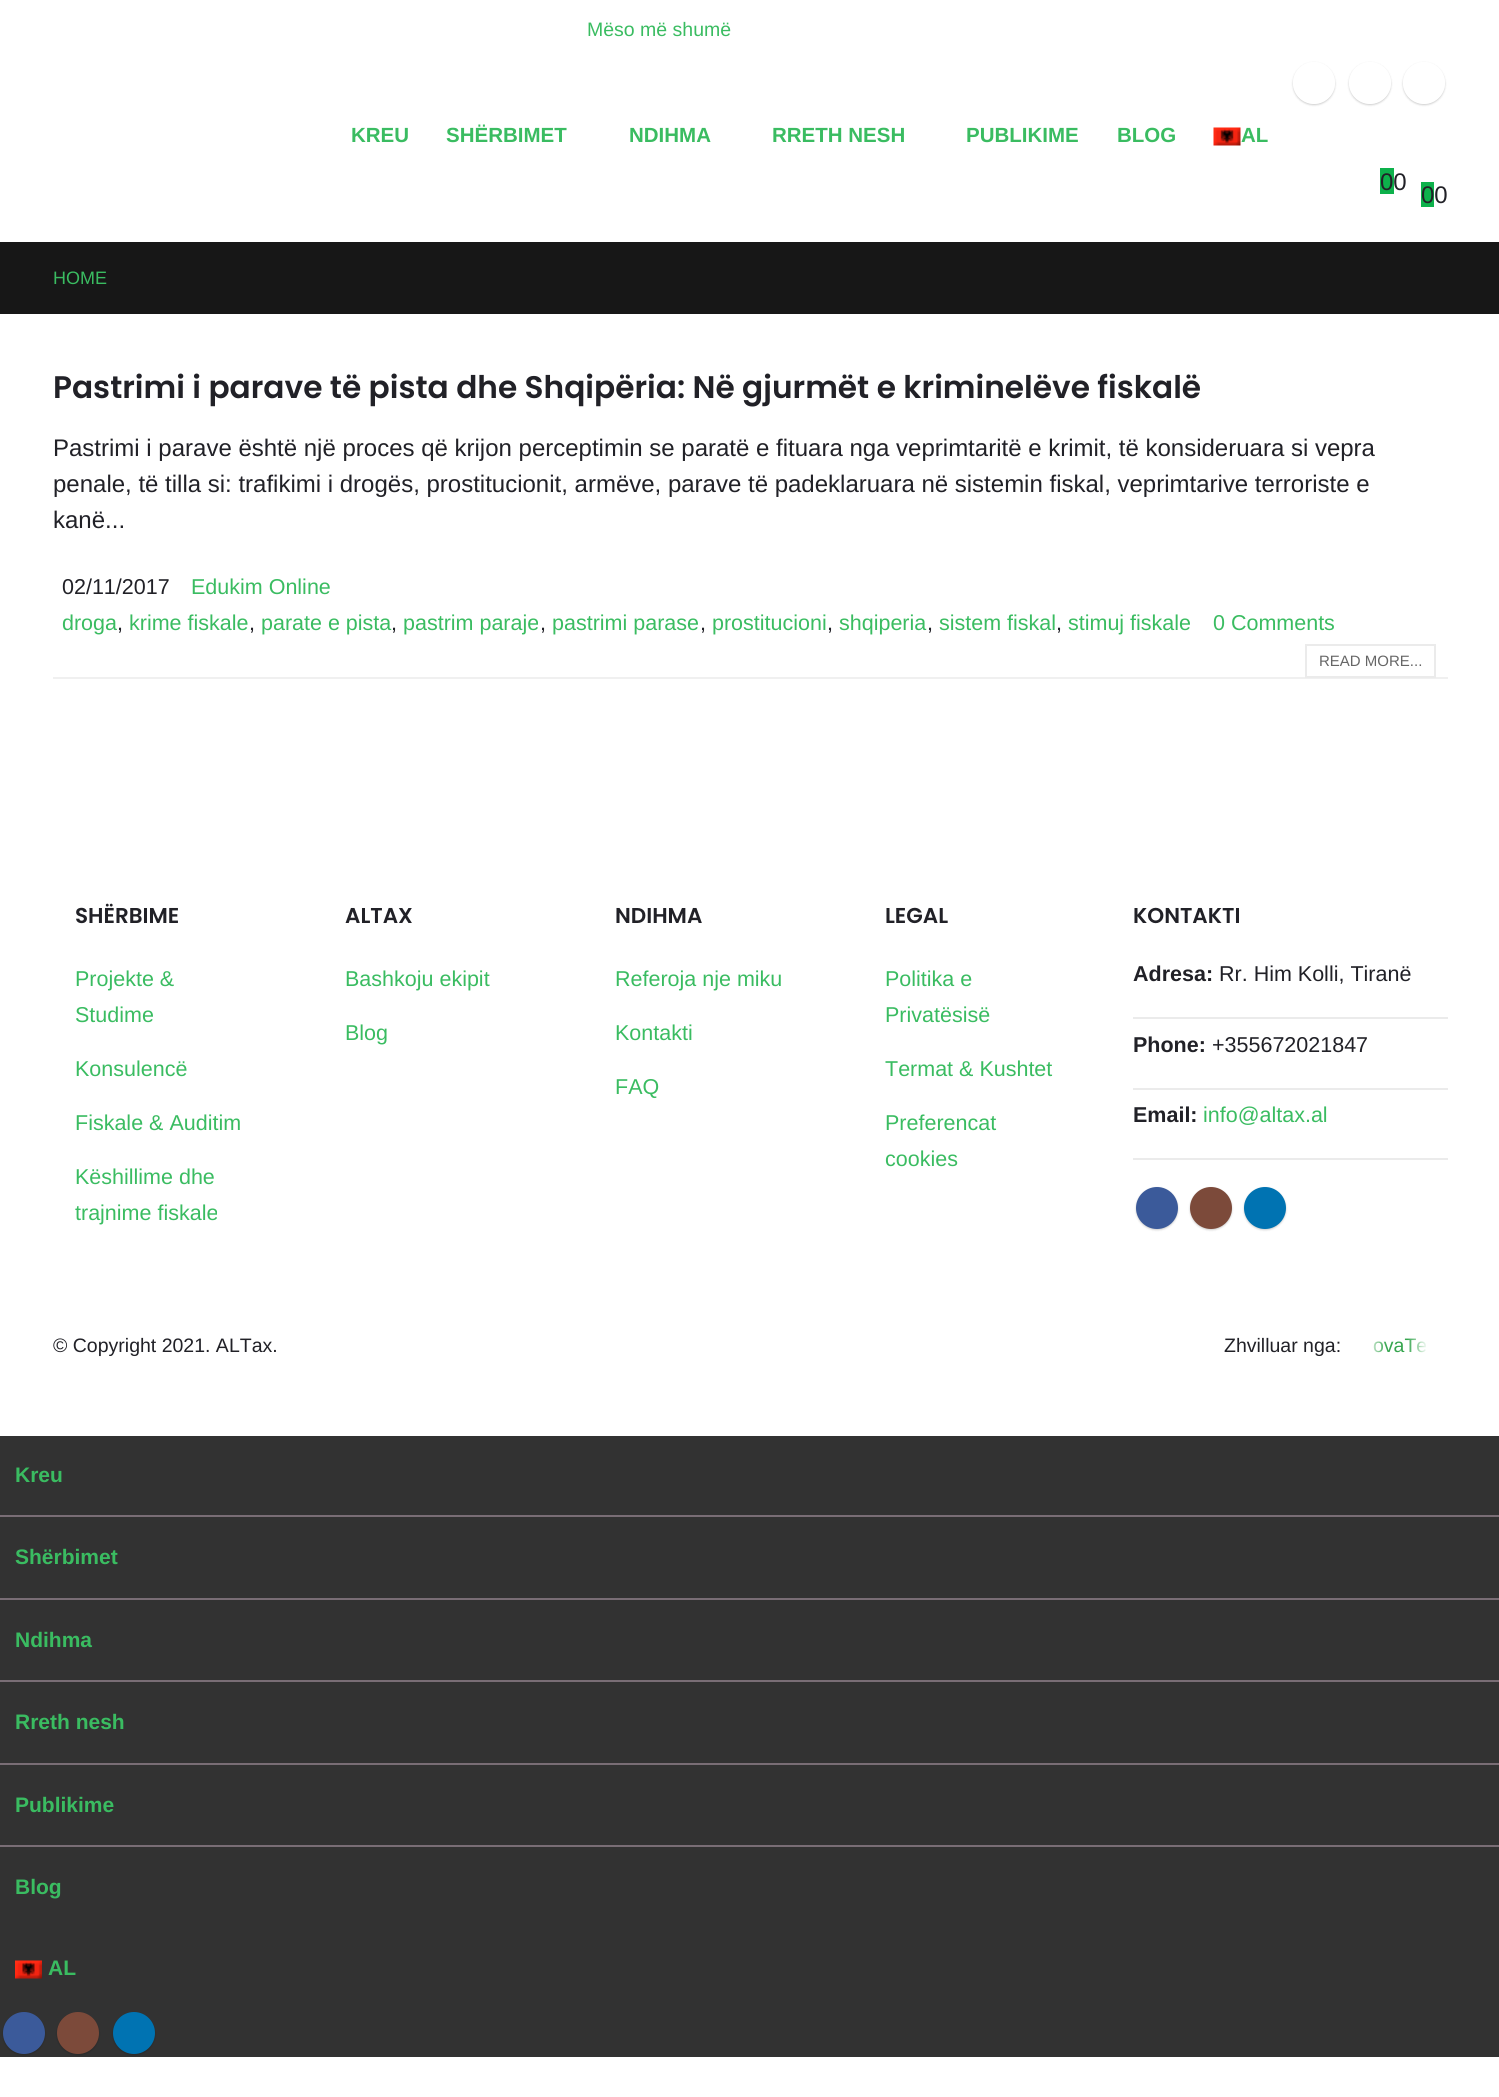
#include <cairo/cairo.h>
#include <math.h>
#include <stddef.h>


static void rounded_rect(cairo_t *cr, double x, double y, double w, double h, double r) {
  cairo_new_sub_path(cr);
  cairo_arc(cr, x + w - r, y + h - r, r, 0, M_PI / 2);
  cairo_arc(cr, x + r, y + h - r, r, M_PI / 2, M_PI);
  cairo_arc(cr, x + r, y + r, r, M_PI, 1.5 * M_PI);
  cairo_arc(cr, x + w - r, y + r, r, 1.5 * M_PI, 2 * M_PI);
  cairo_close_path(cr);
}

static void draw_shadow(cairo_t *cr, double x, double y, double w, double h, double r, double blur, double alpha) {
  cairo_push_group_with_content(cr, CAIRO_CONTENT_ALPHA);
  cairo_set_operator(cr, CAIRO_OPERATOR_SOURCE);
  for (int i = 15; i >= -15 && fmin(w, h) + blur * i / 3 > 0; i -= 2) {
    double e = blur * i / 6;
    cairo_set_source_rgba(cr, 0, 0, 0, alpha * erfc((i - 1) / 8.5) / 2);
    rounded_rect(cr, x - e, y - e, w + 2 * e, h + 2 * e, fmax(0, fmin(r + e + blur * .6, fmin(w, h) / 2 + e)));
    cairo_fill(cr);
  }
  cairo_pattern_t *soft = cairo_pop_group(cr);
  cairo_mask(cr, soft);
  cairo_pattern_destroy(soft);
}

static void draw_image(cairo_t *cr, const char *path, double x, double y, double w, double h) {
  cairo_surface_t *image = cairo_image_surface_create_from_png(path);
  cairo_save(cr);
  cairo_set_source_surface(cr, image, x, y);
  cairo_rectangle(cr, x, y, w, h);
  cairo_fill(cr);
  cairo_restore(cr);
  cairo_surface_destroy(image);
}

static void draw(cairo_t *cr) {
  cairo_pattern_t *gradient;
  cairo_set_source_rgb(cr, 1, 1, 1);
  cairo_paint(cr);
  cairo_save(cr);
  cairo_set_fill_rule(cr, CAIRO_FILL_RULE_EVEN_ODD);
  cairo_new_path(cr);
  cairo_move_to(cr, 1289, 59);
  cairo_line_to(cr, 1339, 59);
  cairo_line_to(cr, 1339, 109);
  cairo_line_to(cr, 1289, 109);
  cairo_close_path(cr);
  cairo_move_to(cr, 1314, 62);
  cairo_curve_to(cr, 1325.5, 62, 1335, 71.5, 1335, 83);
  cairo_curve_to(cr, 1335, 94.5, 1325.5, 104, 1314, 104);
  cairo_curve_to(cr, 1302.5, 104, 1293, 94.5, 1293, 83);
  cairo_curve_to(cr, 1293, 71.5, 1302.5, 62, 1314, 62);
  cairo_close_path(cr);
  cairo_clip(cr);
  cairo_set_source_rgb(cr, 0, 0, 0);
  draw_shadow(cr, 1293, 63, 42, 42, 21, 1, 0.2);
  cairo_restore(cr);
  cairo_save(cr);
  cairo_set_fill_rule(cr, CAIRO_FILL_RULE_EVEN_ODD);
  cairo_new_path(cr);
  cairo_move_to(cr, 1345, 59);
  cairo_line_to(cr, 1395, 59);
  cairo_line_to(cr, 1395, 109);
  cairo_line_to(cr, 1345, 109);
  cairo_close_path(cr);
  cairo_move_to(cr, 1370, 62);
  cairo_curve_to(cr, 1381.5, 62, 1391, 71.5, 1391, 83);
  cairo_curve_to(cr, 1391, 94.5, 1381.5, 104, 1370, 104);
  cairo_curve_to(cr, 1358.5, 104, 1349, 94.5, 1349, 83);
  cairo_curve_to(cr, 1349, 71.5, 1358.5, 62, 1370, 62);
  cairo_close_path(cr);
  cairo_clip(cr);
  cairo_set_source_rgb(cr, 0, 0, 0);
  draw_shadow(cr, 1349, 63, 42, 42, 21, 1, 0.2);
  cairo_restore(cr);
  cairo_save(cr);
  cairo_set_fill_rule(cr, CAIRO_FILL_RULE_EVEN_ODD);
  cairo_new_path(cr);
  cairo_move_to(cr, 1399, 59);
  cairo_line_to(cr, 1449, 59);
  cairo_line_to(cr, 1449, 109);
  cairo_line_to(cr, 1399, 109);
  cairo_close_path(cr);
  cairo_move_to(cr, 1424, 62);
  cairo_curve_to(cr, 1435.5, 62, 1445, 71.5, 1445, 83);
  cairo_curve_to(cr, 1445, 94.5, 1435.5, 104, 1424, 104);
  cairo_curve_to(cr, 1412.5, 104, 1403, 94.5, 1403, 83);
  cairo_curve_to(cr, 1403, 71.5, 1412.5, 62, 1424, 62);
  cairo_close_path(cr);
  cairo_clip(cr);
  cairo_set_source_rgb(cr, 0, 0, 0);
  draw_shadow(cr, 1403, 63, 42, 42, 21, 1, 0.2);
  cairo_restore(cr);
  draw_image(cr, "images/1.png", 1213, 127, 28, 19);
  cairo_set_source_rgb(cr, 13 / 255.0, 177 / 255.0, 75 / 255.0);
  cairo_rectangle(cr, 1380, 168, 14, 26);
  cairo_fill(cr);
  cairo_rectangle(cr, 1421, 182, 13, 25);
  cairo_fill(cr);
  cairo_set_source_rgb(cr, 23 / 255.0, 23 / 255.0, 23 / 255.0);
  cairo_rectangle(cr, 0, 242, 1499, 72);
  cairo_fill(cr);
  cairo_set_source_rgb(cr, 240 / 255.0, 240 / 255.0, 240 / 255.0);
  cairo_rectangle(cr, 53, 677, 1395, 2);
  cairo_fill(cr);
  cairo_rectangle(cr, 1306, 645, 129, 32);
  cairo_set_source_rgb(cr, 235 / 255.0, 235 / 255.0, 235 / 255.0);
  cairo_stroke(cr);
  cairo_rectangle(cr, 1133, 1158, 315, 2);
  cairo_fill(cr);
  cairo_rectangle(cr, 1133, 1017, 315, 2);
  cairo_fill(cr);
  cairo_rectangle(cr, 1133, 1088, 315, 2);
  cairo_fill(cr);
  cairo_set_source_rgb(cr, 0, 0, 0);
  draw_shadow(cr, 1136, 1188, 42, 42, 21, 1, 0.2);
  cairo_set_source_rgb(cr, 59 / 255.0, 90 / 255.0, 154 / 255.0);
  cairo_arc(cr, 1157, 1208, 21, 0, 2 * M_PI);
  cairo_fill(cr);
  cairo_set_source_rgb(cr, 0, 0, 0);
  draw_shadow(cr, 1190, 1188, 42, 42, 21, 1, 0.2);
  cairo_set_source_rgb(cr, 124 / 255.0, 74 / 255.0, 58 / 255.0);
  cairo_arc(cr, 1211, 1208, 21, 0, 2 * M_PI);
  cairo_fill(cr);
  cairo_set_source_rgb(cr, 0, 0, 0);
  draw_shadow(cr, 1244, 1188, 42, 42, 21, 1, 0.2);
  cairo_set_source_rgb(cr, 0, 115 / 255.0, 178 / 255.0);
  cairo_arc(cr, 1265, 1208, 21, 0, 2 * M_PI);
  cairo_fill(cr);
  cairo_set_source_rgb(cr, 50 / 255.0, 50 / 255.0, 50 / 255.0);
  cairo_rectangle(cr, 0, 1436, 1499, 621);
  cairo_fill(cr);
  cairo_set_source_rgb(cr, 121 / 255.0, 109 / 255.0, 117 / 255.0);
  cairo_rectangle(cr, 0, 1515, 1499, 2);
  cairo_fill(cr);
  cairo_rectangle(cr, 0, 1598, 1499, 2);
  cairo_fill(cr);
  cairo_rectangle(cr, 0, 1680, 1499, 2);
  cairo_fill(cr);
  cairo_rectangle(cr, 0, 1763, 1499, 2);
  cairo_fill(cr);
  cairo_rectangle(cr, 0, 1845, 1499, 2);
  cairo_fill(cr);
  draw_image(cr, "images/2.png", 15, 1960, 27, 19);
  cairo_set_source_rgb(cr, 0, 0, 0);
  draw_shadow(cr, 3, 2013, 42, 42, 21, 1, 0.2);
  cairo_set_source_rgb(cr, 59 / 255.0, 90 / 255.0, 154 / 255.0);
  cairo_arc(cr, 24, 2033, 21, 0, 2 * M_PI);
  cairo_fill(cr);
  cairo_set_source_rgb(cr, 0, 0, 0);
  draw_shadow(cr, 57, 2013, 42, 42, 21, 1, 0.2);
  cairo_set_source_rgb(cr, 124 / 255.0, 74 / 255.0, 58 / 255.0);
  cairo_arc(cr, 78, 2033, 21, 0, 2 * M_PI);
  cairo_fill(cr);
  cairo_set_source_rgb(cr, 0, 0, 0);
  draw_shadow(cr, 113, 2013, 42, 42, 21, 1, 0.2);
  cairo_set_source_rgb(cr, 0, 115 / 255.0, 178 / 255.0);
  cairo_arc(cr, 134, 2033, 21, 0, 2 * M_PI);
  cairo_fill(cr);
  cairo_select_font_face(cr, "Liberation Sans", CAIRO_FONT_SLANT_NORMAL, CAIRO_FONT_WEIGHT_NORMAL);
  cairo_set_font_size(cr, 19.5);
  cairo_set_source_rgb(cr, 58 / 255.0, 188 / 255.0, 97 / 255.0);
  cairo_move_to(cr, 587, 36);
  cairo_show_text(cr, "Mëso më shumë");
  cairo_select_font_face(cr, "Liberation Sans", CAIRO_FONT_SLANT_NORMAL, CAIRO_FONT_WEIGHT_BOLD);
  cairo_set_font_size(cr, 20.5);
  cairo_move_to(cr, 351, 142);
  cairo_show_text(cr, "KREU");
  cairo_move_to(cr, 446, 142);
  cairo_show_text(cr, "SHËRBIMET");
  cairo_move_to(cr, 629, 142);
  cairo_show_text(cr, "NDIHMA");
  cairo_move_to(cr, 772, 142);
  cairo_show_text(cr, "RRETH NESH");
  cairo_move_to(cr, 966, 142);
  cairo_show_text(cr, "PUBLIKIME");
  cairo_move_to(cr, 1117, 142);
  cairo_show_text(cr, "BLOG");
  cairo_move_to(cr, 1241, 142);
  cairo_show_text(cr, "AL");
  cairo_select_font_face(cr, "Liberation Sans", CAIRO_FONT_SLANT_NORMAL, CAIRO_FONT_WEIGHT_NORMAL);
  cairo_set_font_size(cr, 24);
  cairo_set_source_rgb(cr, 33 / 255.0, 33 / 255.0, 39 / 255.0);
  cairo_move_to(cr, 1380, 190);
  cairo_show_text(cr, "00");
  cairo_move_to(cr, 1421, 203);
  cairo_show_text(cr, "00");
  cairo_set_font_size(cr, 18);
  cairo_set_source_rgb(cr, 58 / 255.0, 188 / 255.0, 97 / 255.0);
  cairo_move_to(cr, 53, 284);
  cairo_show_text(cr, "HOME");
  cairo_select_font_face(cr, "Poppins SemiBold", CAIRO_FONT_SLANT_NORMAL, CAIRO_FONT_WEIGHT_NORMAL);
  cairo_set_font_size(cr, 31.2);
  cairo_set_source_rgb(cr, 33 / 255.0, 33 / 255.0, 39 / 255.0);
  cairo_move_to(cr, 53, 398);
  cairo_show_text(cr, "Pastrimi i parave të pista dhe Shqipëria: Në gjurmët e kriminelëve fiskalë");
  cairo_select_font_face(cr, "Liberation Sans", CAIRO_FONT_SLANT_NORMAL, CAIRO_FONT_WEIGHT_NORMAL);
  cairo_set_font_size(cr, 24);
  cairo_move_to(cr, 53, 456);
  cairo_show_text(cr, "Pastrimi i parave është një proces që krijon perceptimin se paratë e fituara nga veprimtaritë e krimit, të konsideruara si vepra");
  cairo_move_to(cr, 53, 492);
  cairo_show_text(cr, "penale, të tilla si: trafikimi i drogës, prostitucionit, armëve, parave të padeklaruara në sistemin fiskal, veprimtarive terroriste e");
  cairo_move_to(cr, 53, 528);
  cairo_show_text(cr, "kanë...");
  cairo_set_font_size(cr, 21.5);
  cairo_move_to(cr, 62, 594);
  cairo_show_text(cr, "02/11/2017");
  cairo_set_source_rgb(cr, 58 / 255.0, 188 / 255.0, 97 / 255.0);
  cairo_move_to(cr, 191, 594);
  cairo_show_text(cr, "Edukim Online");
  cairo_move_to(cr, 62, 630);
  cairo_show_text(cr, "droga");
  cairo_set_source_rgb(cr, 33 / 255.0, 33 / 255.0, 39 / 255.0);
  cairo_move_to(cr, 117, 630);
  cairo_show_text(cr, ",");
  cairo_set_source_rgb(cr, 58 / 255.0, 188 / 255.0, 97 / 255.0);
  cairo_move_to(cr, 129, 630);
  cairo_show_text(cr, "krime fiskale");
  cairo_set_source_rgb(cr, 33 / 255.0, 33 / 255.0, 39 / 255.0);
  cairo_move_to(cr, 249, 630);
  cairo_show_text(cr, ",");
  cairo_set_source_rgb(cr, 58 / 255.0, 188 / 255.0, 97 / 255.0);
  cairo_move_to(cr, 261, 630);
  cairo_show_text(cr, "parate e pista");
  cairo_set_source_rgb(cr, 33 / 255.0, 33 / 255.0, 39 / 255.0);
  cairo_move_to(cr, 391, 630);
  cairo_show_text(cr, ",");
  cairo_set_source_rgb(cr, 58 / 255.0, 188 / 255.0, 97 / 255.0);
  cairo_move_to(cr, 403, 630);
  cairo_show_text(cr, "pastrim paraje");
  cairo_set_source_rgb(cr, 33 / 255.0, 33 / 255.0, 39 / 255.0);
  cairo_move_to(cr, 540, 630);
  cairo_show_text(cr, ",");
  cairo_set_source_rgb(cr, 58 / 255.0, 188 / 255.0, 97 / 255.0);
  cairo_move_to(cr, 552, 630);
  cairo_show_text(cr, "pastrimi parase");
  cairo_set_source_rgb(cr, 33 / 255.0, 33 / 255.0, 39 / 255.0);
  cairo_move_to(cr, 700, 630);
  cairo_show_text(cr, ",");
  cairo_set_source_rgb(cr, 58 / 255.0, 188 / 255.0, 97 / 255.0);
  cairo_move_to(cr, 712, 630);
  cairo_show_text(cr, "prostitucioni");
  cairo_set_source_rgb(cr, 33 / 255.0, 33 / 255.0, 39 / 255.0);
  cairo_move_to(cr, 827, 630);
  cairo_show_text(cr, ",");
  cairo_set_source_rgb(cr, 58 / 255.0, 188 / 255.0, 97 / 255.0);
  cairo_move_to(cr, 839, 630);
  cairo_show_text(cr, "shqiperia");
  cairo_set_source_rgb(cr, 33 / 255.0, 33 / 255.0, 39 / 255.0);
  cairo_move_to(cr, 927, 630);
  cairo_show_text(cr, ",");
  cairo_set_source_rgb(cr, 58 / 255.0, 188 / 255.0, 97 / 255.0);
  cairo_move_to(cr, 939, 630);
  cairo_show_text(cr, "sistem fiskal");
  cairo_set_source_rgb(cr, 33 / 255.0, 33 / 255.0, 39 / 255.0);
  cairo_move_to(cr, 1056, 630);
  cairo_show_text(cr, ",");
  cairo_set_source_rgb(cr, 58 / 255.0, 188 / 255.0, 97 / 255.0);
  cairo_move_to(cr, 1068, 630);
  cairo_show_text(cr, "stimuj fiskale");
  cairo_move_to(cr, 1213, 630);
  cairo_show_text(cr, "0 Comments");
  cairo_set_font_size(cr, 15);
  cairo_set_source_rgb(cr, 102 / 255.0, 102 / 255.0, 102 / 255.0);
  cairo_move_to(cr, 1319, 666);
  cairo_show_text(cr, "READ MORE...");
  cairo_select_font_face(cr, "Poppins SemiBold", CAIRO_FONT_SLANT_NORMAL, CAIRO_FONT_WEIGHT_NORMAL);
  cairo_set_font_size(cr, 21.5);
  cairo_set_source_rgb(cr, 33 / 255.0, 33 / 255.0, 39 / 255.0);
  cairo_move_to(cr, 75, 923);
  cairo_show_text(cr, "SHËRBIME");
  cairo_select_font_face(cr, "Liberation Sans", CAIRO_FONT_SLANT_NORMAL, CAIRO_FONT_WEIGHT_NORMAL);
  cairo_set_source_rgb(cr, 58 / 255.0, 188 / 255.0, 97 / 255.0);
  cairo_move_to(cr, 75, 986);
  cairo_show_text(cr, "Projekte &");
  cairo_move_to(cr, 75, 1022);
  cairo_show_text(cr, "Studime");
  cairo_move_to(cr, 75, 1076);
  cairo_show_text(cr, "Konsulencë");
  cairo_move_to(cr, 75, 1130);
  cairo_show_text(cr, "Fiskale & Auditim");
  cairo_move_to(cr, 75, 1184);
  cairo_show_text(cr, "Këshillime dhe");
  cairo_move_to(cr, 75, 1220);
  cairo_show_text(cr, "trajnime fiskale");
  cairo_select_font_face(cr, "Poppins SemiBold", CAIRO_FONT_SLANT_NORMAL, CAIRO_FONT_WEIGHT_NORMAL);
  cairo_set_source_rgb(cr, 33 / 255.0, 33 / 255.0, 39 / 255.0);
  cairo_move_to(cr, 345, 923);
  cairo_show_text(cr, "ALTAX");
  cairo_select_font_face(cr, "Liberation Sans", CAIRO_FONT_SLANT_NORMAL, CAIRO_FONT_WEIGHT_NORMAL);
  cairo_set_source_rgb(cr, 58 / 255.0, 188 / 255.0, 97 / 255.0);
  cairo_move_to(cr, 345, 986);
  cairo_show_text(cr, "Bashkoju ekipit");
  cairo_move_to(cr, 345, 1040);
  cairo_show_text(cr, "Blog");
  cairo_select_font_face(cr, "Poppins SemiBold", CAIRO_FONT_SLANT_NORMAL, CAIRO_FONT_WEIGHT_NORMAL);
  cairo_set_source_rgb(cr, 33 / 255.0, 33 / 255.0, 39 / 255.0);
  cairo_move_to(cr, 615, 923);
  cairo_show_text(cr, "NDIHMA");
  cairo_select_font_face(cr, "Liberation Sans", CAIRO_FONT_SLANT_NORMAL, CAIRO_FONT_WEIGHT_NORMAL);
  cairo_set_source_rgb(cr, 58 / 255.0, 188 / 255.0, 97 / 255.0);
  cairo_move_to(cr, 615, 986);
  cairo_show_text(cr, "Referoja nje miku");
  cairo_move_to(cr, 615, 1040);
  cairo_show_text(cr, "Kontakti");
  cairo_move_to(cr, 615, 1094);
  cairo_show_text(cr, "FAQ");
  cairo_select_font_face(cr, "Poppins SemiBold", CAIRO_FONT_SLANT_NORMAL, CAIRO_FONT_WEIGHT_NORMAL);
  cairo_set_source_rgb(cr, 33 / 255.0, 33 / 255.0, 39 / 255.0);
  cairo_move_to(cr, 885, 923);
  cairo_show_text(cr, "LEGAL");
  cairo_select_font_face(cr, "Liberation Sans", CAIRO_FONT_SLANT_NORMAL, CAIRO_FONT_WEIGHT_NORMAL);
  cairo_set_source_rgb(cr, 58 / 255.0, 188 / 255.0, 97 / 255.0);
  cairo_move_to(cr, 885, 986);
  cairo_show_text(cr, "Politika e");
  cairo_move_to(cr, 885, 1022);
  cairo_show_text(cr, "Privatësisë");
  cairo_move_to(cr, 885, 1076);
  cairo_show_text(cr, "Termat & Kushtet");
  cairo_move_to(cr, 885, 1130);
  cairo_show_text(cr, "Preferencat");
  cairo_move_to(cr, 885, 1166);
  cairo_show_text(cr, "cookies");
  cairo_select_font_face(cr, "Poppins SemiBold", CAIRO_FONT_SLANT_NORMAL, CAIRO_FONT_WEIGHT_NORMAL);
  cairo_set_source_rgb(cr, 33 / 255.0, 33 / 255.0, 39 / 255.0);
  cairo_move_to(cr, 1133, 923);
  cairo_show_text(cr, "KONTAKTI");
  cairo_select_font_face(cr, "Liberation Sans", CAIRO_FONT_SLANT_NORMAL, CAIRO_FONT_WEIGHT_BOLD);
  cairo_move_to(cr, 1133, 981);
  cairo_show_text(cr, "Adresa:");
  cairo_select_font_face(cr, "Liberation Sans", CAIRO_FONT_SLANT_NORMAL, CAIRO_FONT_WEIGHT_NORMAL);
  cairo_move_to(cr, 1219, 981);
  cairo_show_text(cr, "Rr. Him Kolli, Tiranë");
  cairo_select_font_face(cr, "Liberation Sans", CAIRO_FONT_SLANT_NORMAL, CAIRO_FONT_WEIGHT_BOLD);
  cairo_move_to(cr, 1133, 1052);
  cairo_show_text(cr, "Phone:");
  cairo_select_font_face(cr, "Liberation Sans", CAIRO_FONT_SLANT_NORMAL, CAIRO_FONT_WEIGHT_NORMAL);
  cairo_move_to(cr, 1212, 1052);
  cairo_show_text(cr, "+355672021847");
  cairo_select_font_face(cr, "Liberation Sans", CAIRO_FONT_SLANT_NORMAL, CAIRO_FONT_WEIGHT_BOLD);
  cairo_move_to(cr, 1133, 1122);
  cairo_show_text(cr, "Email:");
  cairo_select_font_face(cr, "Liberation Sans", CAIRO_FONT_SLANT_NORMAL, CAIRO_FONT_WEIGHT_NORMAL);
  cairo_set_source_rgb(cr, 58 / 255.0, 188 / 255.0, 97 / 255.0);
  cairo_move_to(cr, 1203, 1122);
  cairo_show_text(cr, "info@altax.al");
  cairo_set_font_size(cr, 19.5);
  cairo_set_source_rgb(cr, 33 / 255.0, 33 / 255.0, 39 / 255.0);
  cairo_move_to(cr, 53, 1352);
  cairo_show_text(cr, "© Copyright 2021. ALTax.");
  cairo_move_to(cr, 1224, 1352);
  cairo_show_text(cr, "Zhvilluar nga:");
  gradient = cairo_pattern_create_linear(1346, 1345, 1448, 1345);
  cairo_pattern_add_color_stop_rgba(gradient, 0.2, 1, 1, 1, 1);
  cairo_pattern_add_color_stop_rgba(gradient, 0.4, 54 / 255.0, 165 / 255.0, 78 / 255.0, 1);
  cairo_pattern_add_color_stop_rgba(gradient, 0.6, 54 / 255.0, 165 / 255.0, 78 / 255.0, 1);
  cairo_pattern_add_color_stop_rgba(gradient, 0.8, 1, 1, 1, 1);
  cairo_set_source(cr, gradient);
  cairo_pattern_destroy(gradient);
  cairo_move_to(cr, 1373, 1352);
  cairo_show_text(cr, "ovaTe");
  cairo_select_font_face(cr, "Liberation Sans", CAIRO_FONT_SLANT_NORMAL, CAIRO_FONT_WEIGHT_BOLD);
  cairo_set_font_size(cr, 21);
  cairo_set_source_rgb(cr, 58 / 255.0, 188 / 255.0, 97 / 255.0);
  cairo_move_to(cr, 15, 1482);
  cairo_show_text(cr, "Kreu");
  cairo_move_to(cr, 15, 1564);
  cairo_show_text(cr, "Shërbimet");
  cairo_move_to(cr, 15, 1647);
  cairo_show_text(cr, "Ndihma");
  cairo_move_to(cr, 15, 1729);
  cairo_show_text(cr, "Rreth nesh");
  cairo_move_to(cr, 15, 1812);
  cairo_show_text(cr, "Publikime");
  cairo_move_to(cr, 15, 1894);
  cairo_show_text(cr, "Blog");
  cairo_move_to(cr, 48, 1975);
  cairo_show_text(cr, "AL");
}

int main(void) {
  cairo_surface_t *surface = cairo_image_surface_create(CAIRO_FORMAT_RGB24, 1499, 2097);
  cairo_t *cr = cairo_create(surface);
  cairo_font_options_t *options = cairo_font_options_create();
  cairo_font_options_set_hint_metrics(options, CAIRO_HINT_METRICS_OFF);
  cairo_font_options_set_hint_style(options, CAIRO_HINT_STYLE_NONE);
  cairo_set_font_options(cr, options);
  cairo_set_miter_limit(cr, 4);
  draw(cr);
  cairo_surface_write_to_png(surface, "out.png");
  cairo_font_options_destroy(options);
  cairo_destroy(cr);
  cairo_surface_destroy(surface);
  return 0;
}
